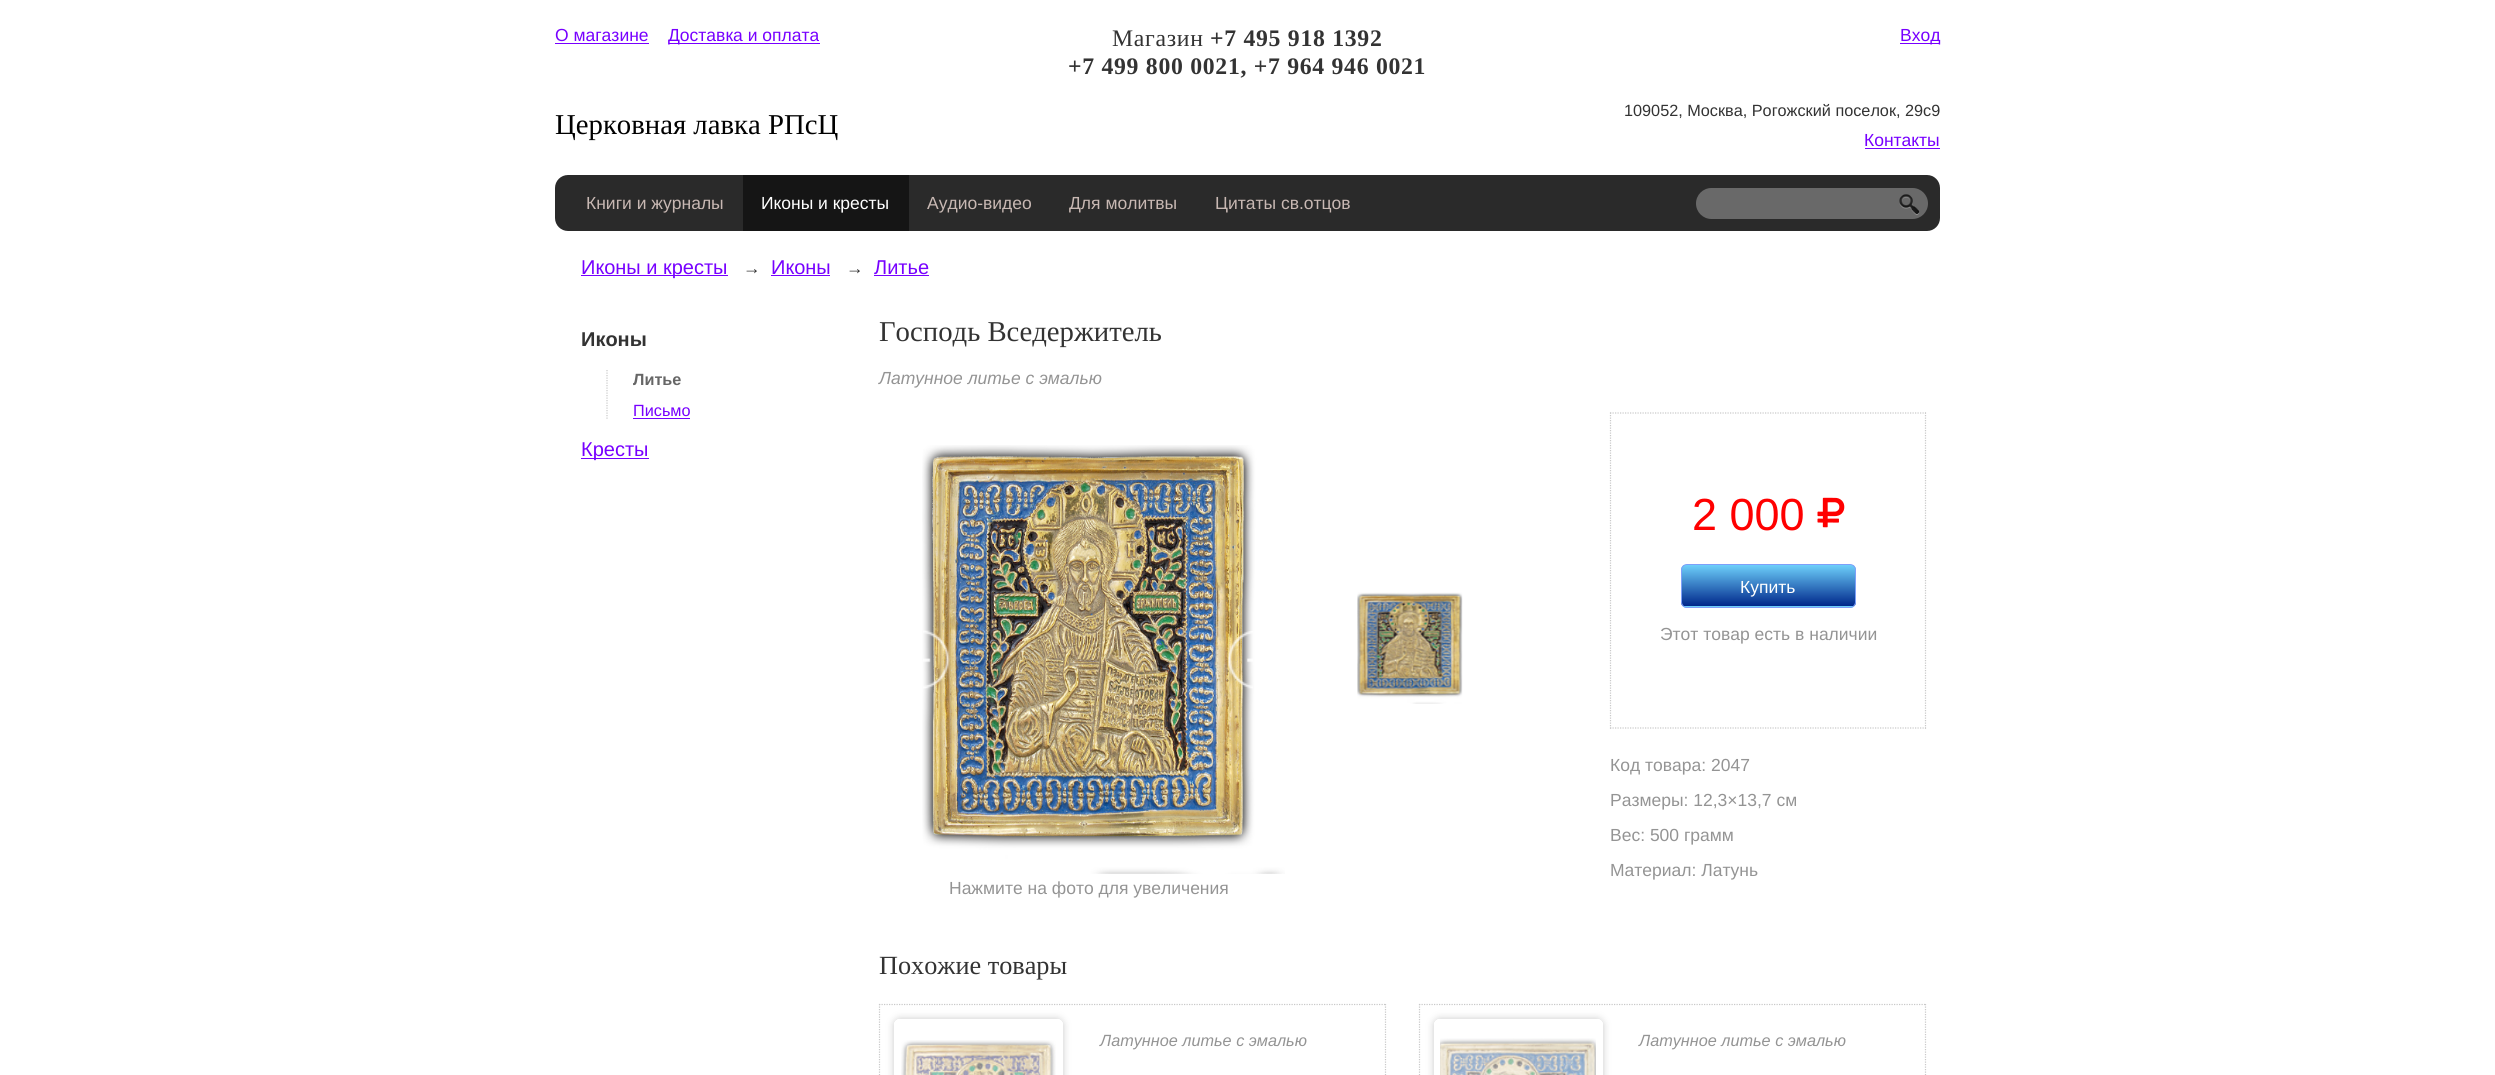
#include <cairo/cairo.h>
#include <math.h>
#include <stddef.h>


static void draw_spaced(cairo_t *cr, double x, double y, const char *s, double letter, double word) {
  cairo_move_to(cr, x, y);
  while (*s) {
    char ch[5] = {0};
    int n = 0;
    do ch[n++] = *s++; while ((*s & 0xC0) == 0x80);
    cairo_show_text(cr, ch);
    cairo_rel_move_to(cr, letter + word * (*ch == ' '), 0);
  }
}

static void rounded_rect(cairo_t *cr, double x, double y, double w, double h, double r) {
  cairo_new_sub_path(cr);
  cairo_arc(cr, x + w - r, y + h - r, r, 0, M_PI / 2);
  cairo_arc(cr, x + r, y + h - r, r, M_PI / 2, M_PI);
  cairo_arc(cr, x + r, y + r, r, M_PI, 1.5 * M_PI);
  cairo_arc(cr, x + w - r, y + r, r, 1.5 * M_PI, 2 * M_PI);
  cairo_close_path(cr);
}

static void draw_shadow(cairo_t *cr, double x, double y, double w, double h, double r, double blur, double alpha) {
  cairo_push_group_with_content(cr, CAIRO_CONTENT_ALPHA);
  cairo_set_operator(cr, CAIRO_OPERATOR_SOURCE);
  for (int i = 15; i >= -15 && fmin(w, h) + blur * i / 3 > 0; i -= 2) {
    double e = blur * i / 6;
    cairo_set_source_rgba(cr, 0, 0, 0, alpha * erfc((i - 1) / 8.5) / 2);
    rounded_rect(cr, x - e, y - e, w + 2 * e, h + 2 * e, fmax(0, fmin(r + e + blur * .6, fmin(w, h) / 2 + e)));
    cairo_fill(cr);
  }
  cairo_pattern_t *soft = cairo_pop_group(cr);
  cairo_mask(cr, soft);
  cairo_pattern_destroy(soft);
}

static void draw_image(cairo_t *cr, const char *path, double x, double y, double w, double h) {
  cairo_surface_t *image = cairo_image_surface_create_from_png(path);
  cairo_save(cr);
  cairo_set_source_surface(cr, image, x, y);
  cairo_rectangle(cr, x, y, w, h);
  cairo_fill(cr);
  cairo_restore(cr);
  cairo_surface_destroy(image);
}

static void draw(cairo_t *cr) {
  cairo_pattern_t *gradient;
  cairo_set_source_rgb(cr, 1, 1, 1);
  cairo_paint(cr);
  cairo_set_source_rgb(cr, 119 / 255.0, 0, 1);
  cairo_rectangle(cr, 555, 43, 94, 1);
  cairo_fill(cr);
  cairo_rectangle(cr, 669, 43, 151, 1);
  cairo_fill(cr);
  cairo_rectangle(cr, 1900, 43, 40, 1);
  cairo_fill(cr);
  cairo_rectangle(cr, 1865, 148, 75, 1);
  cairo_fill(cr);
  cairo_set_source_rgb(cr, 42 / 255.0, 42 / 255.0, 42 / 255.0);
  rounded_rect(cr, 555, 175, 1385, 56, 13);
  cairo_fill(cr);
  cairo_set_source_rgb(cr, 21 / 255.0, 21 / 255.0, 21 / 255.0);
  cairo_rectangle(cr, 743, 175, 166, 56);
  cairo_fill(cr);
  cairo_set_source_rgb(cr, 105 / 255.0, 105 / 255.0, 105 / 255.0);
  rounded_rect(cr, 1696, 188, 232, 31, 15.5);
  cairo_fill(cr);
  draw_image(cr, "images/1.png", 1899, 194, 21, 21);
  cairo_set_source_rgb(cr, 119 / 255.0, 0, 1);
  cairo_rectangle(cr, 581, 275, 147, 1);
  cairo_fill(cr);
  cairo_rectangle(cr, 771, 275, 59, 1);
  cairo_fill(cr);
  cairo_rectangle(cr, 874, 275, 55, 1);
  cairo_fill(cr);
  cairo_new_path(cr);
  cairo_move_to(cr, 607, 370);
  cairo_line_to(cr, 607, 420);
  cairo_set_source_rgb(cr, 201 / 255.0, 201 / 255.0, 201 / 255.0);
  cairo_set_line_width(cr, 1.2);
  cairo_set_dash(cr, (double[]){1.25, 1.25}, 2, 0);
  cairo_stroke(cr);
  cairo_set_source_rgb(cr, 119 / 255.0, 0, 1);
  cairo_rectangle(cr, 633, 418, 57, 1);
  cairo_fill(cr);
  cairo_rectangle(cr, 581, 458, 68, 1);
  cairo_fill(cr);
  draw_image(cr, "images/2.png", 922, 445, 363, 429);
  draw_image(cr, "images/3.png", 1357, 592, 106, 112);
  draw_image(cr, "images/4.png", 923, 630, 27, 59);
  draw_image(cr, "images/5.png", 1227, 631, 26, 58);
  cairo_new_path(cr);
  cairo_move_to(cr, 1610, 413);
  cairo_line_to(cr, 1926, 413);
  cairo_set_source_rgb(cr, 201 / 255.0, 201 / 255.0, 201 / 255.0);
  cairo_stroke(cr);
  cairo_new_path(cr);
  cairo_move_to(cr, 1925.5, 412.5);
  cairo_line_to(cr, 1925.5, 729);
  cairo_stroke(cr);
  cairo_new_path(cr);
  cairo_move_to(cr, 1610, 728);
  cairo_line_to(cr, 1926, 728);
  cairo_stroke(cr);
  cairo_new_path(cr);
  cairo_move_to(cr, 1610.5, 412.5);
  cairo_line_to(cr, 1610.5, 729);
  cairo_stroke(cr);
  draw_image(cr, "images/6.png", 1817, 497, 28, 31);
  cairo_save(cr);
  rounded_rect(cr, 1681, 564, 175, 44, 6);
  cairo_clip(cr);
  gradient = cairo_pattern_create_linear(1769, 565, 1769, 606);
  cairo_pattern_add_color_stop_rgba(gradient, 0, 109 / 255.0, 207 / 255.0, 250 / 255.0, 1);
  cairo_pattern_add_color_stop_rgba(gradient, 1, 0, 39 / 255.0, 139 / 255.0, 1);
  cairo_set_source(cr, gradient);
  cairo_pattern_destroy(gradient);
  cairo_rectangle(cr, 1681, 565, 175, 41);
  cairo_fill(cr);
  gradient = cairo_pattern_create_linear(1769, 606, 1769, 648);
  cairo_pattern_add_color_stop_rgba(gradient, 0, 109 / 255.0, 207 / 255.0, 250 / 255.0, 1);
  cairo_pattern_add_color_stop_rgba(gradient, 1, 0, 39 / 255.0, 139 / 255.0, 1);
  cairo_set_source(cr, gradient);
  cairo_pattern_destroy(gradient);
  cairo_rectangle(cr, 1681, 606, 175, 2);
  cairo_fill(cr);
  cairo_restore(cr);
  rounded_rect(cr, 1681.5, 564.5, 174, 43, 5.5);
  cairo_set_source_rgb(cr, 126 / 255.0, 160 / 255.0, 249 / 255.0);
  cairo_set_line_width(cr, 1);
  cairo_set_dash(cr, NULL, 0, 0);
  cairo_stroke(cr);
  cairo_new_path(cr);
  cairo_move_to(cr, 879, 1004.5);
  cairo_line_to(cr, 1386, 1004.5);
  cairo_set_source_rgb(cr, 201 / 255.0, 201 / 255.0, 201 / 255.0);
  cairo_set_line_width(cr, 1.2);
  cairo_set_dash(cr, (double[]){1.25, 1.25}, 2, 0);
  cairo_stroke(cr);
  cairo_new_path(cr);
  cairo_move_to(cr, 1385.5, 1004);
  cairo_line_to(cr, 1385.5, 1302.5);
  cairo_stroke(cr);
  cairo_new_path(cr);
  cairo_move_to(cr, 879.5, 1004);
  cairo_line_to(cr, 879.5, 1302.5);
  cairo_stroke(cr);
  cairo_save(cr);
  cairo_set_fill_rule(cr, CAIRO_FILL_RULE_EVEN_ODD);
  cairo_new_path(cr);
  cairo_move_to(cr, 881, 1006);
  cairo_line_to(cr, 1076, 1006);
  cairo_line_to(cr, 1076, 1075);
  cairo_line_to(cr, 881, 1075);
  cairo_close_path(cr);
  cairo_move_to(cr, 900, 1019);
  cairo_line_to(cr, 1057, 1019);
  cairo_curve_to(cr, 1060.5, 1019, 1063, 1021.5, 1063, 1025);
  cairo_line_to(cr, 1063, 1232);
  cairo_curve_to(cr, 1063, 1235.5, 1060.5, 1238, 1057, 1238);
  cairo_line_to(cr, 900, 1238);
  cairo_curve_to(cr, 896.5, 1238, 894, 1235.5, 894, 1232);
  cairo_line_to(cr, 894, 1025);
  cairo_curve_to(cr, 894, 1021.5, 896.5, 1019, 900, 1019);
  cairo_close_path(cr);
  cairo_clip(cr);
  cairo_set_source_rgb(cr, 202 / 255.0, 202 / 255.0, 202 / 255.0);
  draw_shadow(cr, 894, 1019, 169, 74, 6, 4, 1);
  cairo_restore(cr);
  rounded_rect(cr, 897, 1022, 163, 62, 3);
  cairo_set_source_rgb(cr, 1, 1, 1);
  cairo_set_line_width(cr, 6);
  cairo_set_dash(cr, NULL, 0, 0);
  cairo_stroke(cr);
  draw_image(cr, "images/7.png", 901, 1040, 155, 35);
  cairo_new_path(cr);
  cairo_move_to(cr, 1419, 1004.5);
  cairo_line_to(cr, 1926, 1004.5);
  cairo_set_source_rgb(cr, 201 / 255.0, 201 / 255.0, 201 / 255.0);
  cairo_set_line_width(cr, 1.2);
  cairo_set_dash(cr, (double[]){1.25, 1.25}, 2, 0);
  cairo_stroke(cr);
  cairo_new_path(cr);
  cairo_move_to(cr, 1925.5, 1004);
  cairo_line_to(cr, 1925.5, 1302.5);
  cairo_stroke(cr);
  cairo_new_path(cr);
  cairo_move_to(cr, 1419.5, 1004);
  cairo_line_to(cr, 1419.5, 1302.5);
  cairo_stroke(cr);
  cairo_save(cr);
  cairo_set_fill_rule(cr, CAIRO_FILL_RULE_EVEN_ODD);
  cairo_new_path(cr);
  cairo_move_to(cr, 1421, 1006);
  cairo_line_to(cr, 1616, 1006);
  cairo_line_to(cr, 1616, 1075);
  cairo_line_to(cr, 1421, 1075);
  cairo_close_path(cr);
  cairo_move_to(cr, 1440, 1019);
  cairo_line_to(cr, 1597, 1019);
  cairo_curve_to(cr, 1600.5, 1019, 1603, 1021.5, 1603, 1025);
  cairo_line_to(cr, 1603, 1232);
  cairo_curve_to(cr, 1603, 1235.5, 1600.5, 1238, 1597, 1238);
  cairo_line_to(cr, 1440, 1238);
  cairo_curve_to(cr, 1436.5, 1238, 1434, 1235.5, 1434, 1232);
  cairo_line_to(cr, 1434, 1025);
  cairo_curve_to(cr, 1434, 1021.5, 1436.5, 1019, 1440, 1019);
  cairo_close_path(cr);
  cairo_clip(cr);
  cairo_set_source_rgb(cr, 202 / 255.0, 202 / 255.0, 202 / 255.0);
  draw_shadow(cr, 1434, 1019, 169, 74, 6, 4, 1);
  cairo_restore(cr);
  rounded_rect(cr, 1437, 1022, 163, 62, 3);
  cairo_set_source_rgb(cr, 1, 1, 1);
  cairo_set_line_width(cr, 6);
  cairo_set_dash(cr, NULL, 0, 0);
  cairo_stroke(cr);
  draw_image(cr, "images/8.png", 1440, 1038, 156, 37);
  cairo_select_font_face(cr, "Liberation Sans", CAIRO_FONT_SLANT_NORMAL, CAIRO_FONT_WEIGHT_NORMAL);
  cairo_set_font_size(cr, 17.5);
  cairo_set_source_rgb(cr, 119 / 255.0, 0, 1);
  cairo_move_to(cr, 555, 41);
  cairo_show_text(cr, "О магазине");
  cairo_move_to(cr, 668, 41);
  cairo_show_text(cr, "Доставка и оплата");
  cairo_select_font_face(cr, "Liberation Serif", CAIRO_FONT_SLANT_NORMAL, CAIRO_FONT_WEIGHT_NORMAL);
  cairo_set_font_size(cr, 23.75);
  cairo_set_source_rgb(cr, 51 / 255.0, 51 / 255.0, 51 / 255.0);
  draw_spaced(cr, 1112, 46, "Магазин", 0.7, 0);
  cairo_select_font_face(cr, "Liberation Serif", CAIRO_FONT_SLANT_NORMAL, CAIRO_FONT_WEIGHT_BOLD);
  draw_spaced(cr, 1210, 46, "+7 495 918 1392", 0.7, 0);
  draw_spaced(cr, 1068, 74, "+7 499 800 0021, +7 964 946 0021", 0.7, 0);
  cairo_select_font_face(cr, "Liberation Sans", CAIRO_FONT_SLANT_NORMAL, CAIRO_FONT_WEIGHT_NORMAL);
  cairo_set_font_size(cr, 17.5);
  cairo_set_source_rgb(cr, 119 / 255.0, 0, 1);
  cairo_move_to(cr, 1900, 41);
  cairo_show_text(cr, "Вход");
  cairo_select_font_face(cr, "Liberation Serif", CAIRO_FONT_SLANT_NORMAL, CAIRO_FONT_WEIGHT_NORMAL);
  cairo_set_font_size(cr, 28.75);
  cairo_set_source_rgb(cr, 0, 0, 0);
  cairo_move_to(cr, 555, 134);
  cairo_show_text(cr, "Церковная лавка РПсЦ");
  cairo_select_font_face(cr, "Liberation Sans", CAIRO_FONT_SLANT_NORMAL, CAIRO_FONT_WEIGHT_NORMAL);
  cairo_set_font_size(cr, 16.25);
  cairo_set_source_rgb(cr, 51 / 255.0, 51 / 255.0, 51 / 255.0);
  cairo_move_to(cr, 1624, 116);
  cairo_show_text(cr, "109052, Москва, Рогожский поселок, 29с9");
  cairo_set_font_size(cr, 17.5);
  cairo_set_source_rgb(cr, 119 / 255.0, 0, 1);
  cairo_move_to(cr, 1864, 146);
  cairo_show_text(cr, "Контакты");
  cairo_set_source_rgb(cr, 200 / 255.0, 184 / 255.0, 179 / 255.0);
  cairo_move_to(cr, 586, 209);
  cairo_show_text(cr, "Книги и журналы");
  cairo_set_source_rgb(cr, 1, 1, 1);
  cairo_move_to(cr, 761, 209);
  cairo_show_text(cr, "Иконы и кресты");
  cairo_set_source_rgb(cr, 200 / 255.0, 184 / 255.0, 179 / 255.0);
  cairo_move_to(cr, 927, 209);
  cairo_show_text(cr, "Аудио-видео");
  cairo_move_to(cr, 1069, 209);
  cairo_show_text(cr, "Для молитвы");
  cairo_move_to(cr, 1215, 209);
  cairo_show_text(cr, "Цитаты св.отцов");
  cairo_set_font_size(cr, 20);
  cairo_set_source_rgb(cr, 119 / 255.0, 0, 1);
  cairo_move_to(cr, 581, 274);
  cairo_show_text(cr, "Иконы и кресты");
  cairo_set_font_size(cr, 17.5);
  cairo_set_source_rgb(cr, 51 / 255.0, 51 / 255.0, 51 / 255.0);
  cairo_move_to(cr, 743, 274);
  cairo_show_text(cr, "→");
  cairo_set_font_size(cr, 20);
  cairo_set_source_rgb(cr, 119 / 255.0, 0, 1);
  cairo_move_to(cr, 771, 274);
  cairo_show_text(cr, "Иконы");
  cairo_set_font_size(cr, 17.5);
  cairo_set_source_rgb(cr, 51 / 255.0, 51 / 255.0, 51 / 255.0);
  cairo_move_to(cr, 846, 274);
  cairo_show_text(cr, "→");
  cairo_set_font_size(cr, 20);
  cairo_set_source_rgb(cr, 119 / 255.0, 0, 1);
  cairo_move_to(cr, 874, 274);
  cairo_show_text(cr, "Литье");
  cairo_select_font_face(cr, "Liberation Sans", CAIRO_FONT_SLANT_NORMAL, CAIRO_FONT_WEIGHT_BOLD);
  cairo_set_source_rgb(cr, 51 / 255.0, 51 / 255.0, 51 / 255.0);
  cairo_move_to(cr, 581, 346);
  cairo_show_text(cr, "Иконы");
  cairo_set_font_size(cr, 16.25);
  cairo_set_source_rgb(cr, 102 / 255.0, 102 / 255.0, 102 / 255.0);
  cairo_move_to(cr, 633, 385);
  cairo_show_text(cr, "Литье");
  cairo_select_font_face(cr, "Liberation Sans", CAIRO_FONT_SLANT_NORMAL, CAIRO_FONT_WEIGHT_NORMAL);
  cairo_set_source_rgb(cr, 119 / 255.0, 0, 1);
  cairo_move_to(cr, 633, 416);
  cairo_show_text(cr, "Письмо");
  cairo_set_font_size(cr, 20);
  cairo_move_to(cr, 581, 456);
  cairo_show_text(cr, "Кресты");
  cairo_select_font_face(cr, "Liberation Serif", CAIRO_FONT_SLANT_NORMAL, CAIRO_FONT_WEIGHT_NORMAL);
  cairo_set_font_size(cr, 28.75);
  cairo_set_source_rgb(cr, 51 / 255.0, 51 / 255.0, 51 / 255.0);
  cairo_move_to(cr, 879, 341);
  cairo_show_text(cr, "Господь Вседержитель");
  cairo_select_font_face(cr, "Liberation Sans", CAIRO_FONT_SLANT_ITALIC, CAIRO_FONT_WEIGHT_NORMAL);
  cairo_set_font_size(cr, 17.5);
  cairo_set_source_rgb(cr, 148 / 255.0, 148 / 255.0, 148 / 255.0);
  cairo_move_to(cr, 879, 384);
  cairo_show_text(cr, "Латунное литье с эмалью");
  cairo_select_font_face(cr, "Liberation Sans", CAIRO_FONT_SLANT_NORMAL, CAIRO_FONT_WEIGHT_NORMAL);
  cairo_set_font_size(cr, 45);
  cairo_set_source_rgb(cr, 1, 0, 0);
  cairo_move_to(cr, 1692, 530);
  cairo_show_text(cr, "2 000");
  cairo_set_font_size(cr, 17.5);
  cairo_set_source_rgb(cr, 1, 1, 1);
  cairo_move_to(cr, 1740, 593);
  cairo_show_text(cr, "Купить");
  cairo_set_source_rgb(cr, 148 / 255.0, 148 / 255.0, 148 / 255.0);
  cairo_move_to(cr, 1660, 640);
  cairo_show_text(cr, "Этот товар есть в наличии");
  cairo_move_to(cr, 1610, 771);
  cairo_show_text(cr, "Код товара: 2047");
  cairo_move_to(cr, 1610, 806);
  cairo_show_text(cr, "Размеры: 12,3×13,7 см");
  cairo_move_to(cr, 1610, 841);
  cairo_show_text(cr, "Вес: 500 грамм");
  cairo_move_to(cr, 1610, 876);
  cairo_show_text(cr, "Материал: Латунь");
  cairo_move_to(cr, 949, 894);
  cairo_show_text(cr, "Нажмите на фото для увеличения");
  cairo_select_font_face(cr, "Liberation Serif", CAIRO_FONT_SLANT_NORMAL, CAIRO_FONT_WEIGHT_NORMAL);
  cairo_set_font_size(cr, 26.25);
  cairo_set_source_rgb(cr, 51 / 255.0, 51 / 255.0, 51 / 255.0);
  cairo_move_to(cr, 879, 974);
  cairo_show_text(cr, "Похожие товары");
  cairo_select_font_face(cr, "Liberation Sans", CAIRO_FONT_SLANT_ITALIC, CAIRO_FONT_WEIGHT_NORMAL);
  cairo_set_font_size(cr, 16.25);
  cairo_set_source_rgb(cr, 148 / 255.0, 148 / 255.0, 148 / 255.0);
  cairo_move_to(cr, 1100, 1046);
  cairo_show_text(cr, "Латунное литье с эмалью");
  cairo_move_to(cr, 1639, 1046);
  cairo_show_text(cr, "Латунное литье с эмалью");
}

int main(void) {
  cairo_surface_t *surface = cairo_image_surface_create(CAIRO_FORMAT_RGB24, 2495, 1075);
  cairo_t *cr = cairo_create(surface);
  cairo_font_options_t *options = cairo_font_options_create();
  cairo_font_options_set_hint_metrics(options, CAIRO_HINT_METRICS_OFF);
  cairo_font_options_set_hint_style(options, CAIRO_HINT_STYLE_NONE);
  cairo_set_font_options(cr, options);
  cairo_set_miter_limit(cr, 4);
  draw(cr);
  cairo_surface_write_to_png(surface, "out.png");
  cairo_font_options_destroy(options);
  cairo_destroy(cr);
  cairo_surface_destroy(surface);
  return 0;
}
